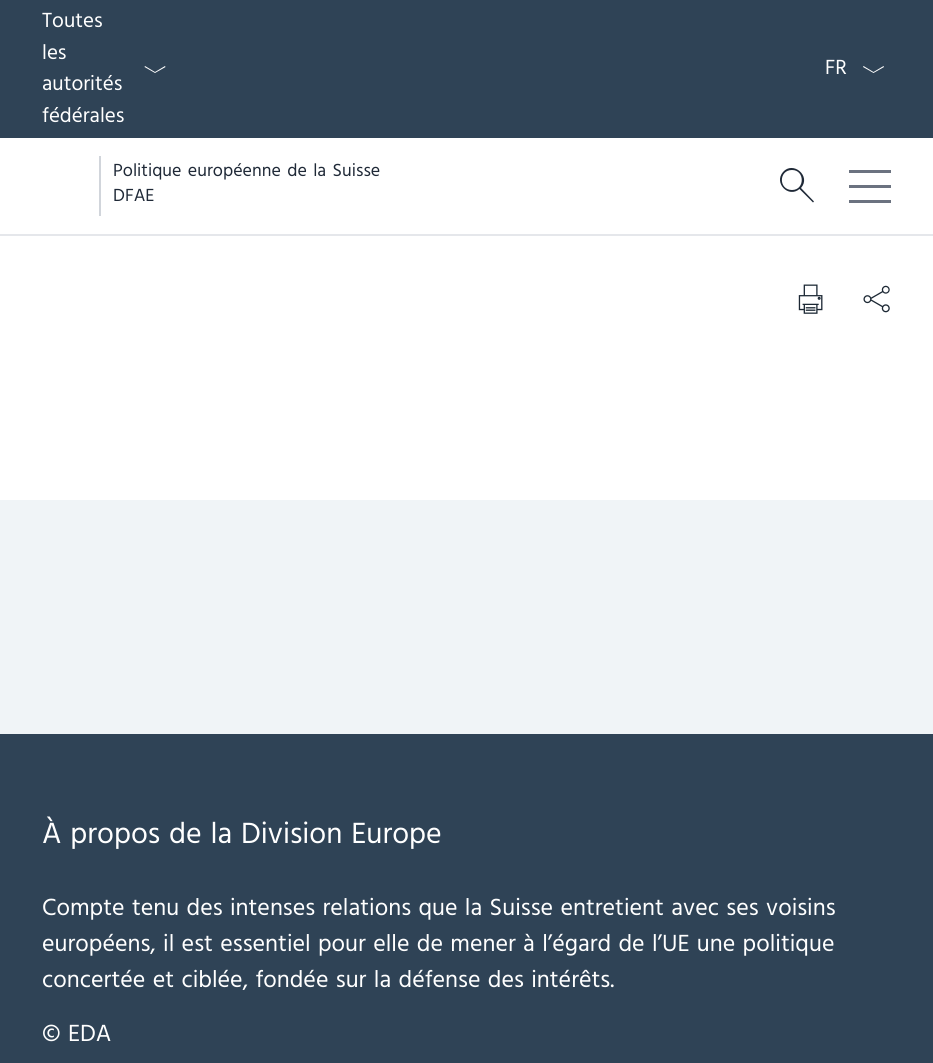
#include <cairo/cairo.h>
#include <math.h>
#include <stddef.h>


static void draw_spaced(cairo_t *cr, double x, double y, const char *s, double letter, double word) {
  cairo_move_to(cr, x, y);
  while (*s) {
    char ch[5] = {0};
    int n = 0;
    do ch[n++] = *s++; while ((*s & 0xC0) == 0x80);
    cairo_show_text(cr, ch);
    cairo_rel_move_to(cr, letter + word * (*ch == ' '), 0);
  }
}

static void draw_image(cairo_t *cr, const char *path, double x, double y, double w, double h) {
  cairo_surface_t *image = cairo_image_surface_create_from_png(path);
  cairo_save(cr);
  cairo_set_source_surface(cr, image, x, y);
  cairo_rectangle(cr, x, y, w, h);
  cairo_fill(cr);
  cairo_restore(cr);
  cairo_surface_destroy(image);
}

static void draw(cairo_t *cr) {
  cairo_set_source_rgb(cr, 1, 1, 1);
  cairo_paint(cr);
  cairo_set_source_rgb(cr, 47 / 255.0, 67 / 255.0, 86 / 255.0);
  cairo_rectangle(cr, 0, 0, 933, 138);
  cairo_fill(cr);
  cairo_set_source_rgb(cr, 1, 1, 1);
  cairo_new_path(cr);
  cairo_move_to(cr, 145, 66);
  cairo_line_to(cr, 155, 72);
  cairo_line_to(cr, 165, 66);
  cairo_line_to(cr, 165.5, 67);
  cairo_line_to(cr, 155, 73);
  cairo_line_to(cr, 144.5, 67);
  cairo_close_path(cr);
  cairo_fill(cr);
  cairo_new_path(cr);
  cairo_move_to(cr, 863.5, 66);
  cairo_line_to(cr, 873.5, 72);
  cairo_line_to(cr, 883.5, 66);
  cairo_line_to(cr, 884, 67);
  cairo_line_to(cr, 873.5, 73);
  cairo_line_to(cr, 863, 67);
  cairo_close_path(cr);
  cairo_fill(cr);
  cairo_set_source_rgb(cr, 229 / 255.0, 231 / 255.0, 235 / 255.0);
  cairo_rectangle(cr, 0, 234, 933, 2);
  cairo_fill(cr);
  cairo_set_source_rgb(cr, 209 / 255.0, 213 / 255.0, 219 / 255.0);
  cairo_rectangle(cr, 99, 156, 2, 60);
  cairo_fill(cr);
  cairo_set_source_rgb(cr, 31 / 255.0, 41 / 255.0, 55 / 255.0);
  cairo_new_path(cr);
  cairo_move_to(cr, 801, 188);
  cairo_curve_to(cr, 811.5, 176, 793, 160.5, 783, 172);
  cairo_curve_to(cr, 773.5, 183, 788.5, 198.5, 799.5, 189);
  cairo_line_to(cr, 813, 202.5);
  cairo_line_to(cr, 814, 201.5);
  cairo_close_path(cr);
  cairo_move_to(cr, 792, 190);
  cairo_curve_to(cr, 778.5, 190, 778.5, 170, 792, 170);
  cairo_curve_to(cr, 805, 170, 805, 190, 792, 190);
  cairo_fill(cr);
  cairo_set_source_rgb(cr, 107 / 255.0, 114 / 255.0, 128 / 255.0);
  cairo_rectangle(cr, 849, 170, 42, 3);
  cairo_fill(cr);
  cairo_rectangle(cr, 849, 185, 42, 3);
  cairo_fill(cr);
  cairo_rectangle(cr, 849, 200, 42, 3);
  cairo_fill(cr);
  draw_image(cr, "images/1.png", 798, 284, 25, 30);
  draw_image(cr, "images/2.png", 863, 285, 27, 28);
  cairo_set_source_rgb(cr, 240 / 255.0, 244 / 255.0, 247 / 255.0);
  cairo_rectangle(cr, 0, 500, 933, 234);
  cairo_fill(cr);
  cairo_set_source_rgb(cr, 47 / 255.0, 67 / 255.0, 86 / 255.0);
  cairo_rectangle(cr, 0, 734, 933, 329);
  cairo_fill(cr);
  cairo_select_font_face(cr, "Hind", CAIRO_FONT_SLANT_NORMAL, CAIRO_FONT_WEIGHT_NORMAL);
  cairo_set_font_size(cr, 21);
  cairo_set_source_rgb(cr, 1, 1, 1);
  cairo_move_to(cr, 42, 27);
  cairo_show_text(cr, "Toutes");
  cairo_move_to(cr, 42, 59);
  cairo_show_text(cr, "les");
  cairo_move_to(cr, 42, 90);
  cairo_show_text(cr, "autorités");
  cairo_move_to(cr, 42, 122);
  cairo_show_text(cr, "fédérales");
  cairo_move_to(cr, 825, 74);
  cairo_show_text(cr, "FR");
  cairo_set_font_size(cr, 18);
  cairo_set_source_rgb(cr, 31 / 255.0, 41 / 255.0, 55 / 255.0);
  draw_spaced(cr, 113, 176, "Politique européenne de la Suisse", 0, 2);
  cairo_move_to(cr, 113, 201);
  cairo_show_text(cr, "DFAE");
  cairo_set_font_size(cr, 30);
  cairo_set_source_rgb(cr, 1, 1, 1);
  draw_spaced(cr, 42, 843, "À propos de la Division Europe", 0, 1.5);
  cairo_set_font_size(cr, 24);
  draw_spaced(cr, 42, 915, "Compte tenu des intenses relations que la Suisse entretient avec ses voisins", 0, 1.5);
  draw_spaced(cr, 42, 951, "européens, il est essentiel pour elle de mener à l’égard de l’UE une politique", 0, 1.5);
  draw_spaced(cr, 42, 987, "concertée et ciblée, fondée sur la défense des intérêts.", 0, 1.5);
  draw_spaced(cr, 42, 1041, "© EDA", 0, 1.5);
}

int main(void) {
  cairo_surface_t *surface = cairo_image_surface_create(CAIRO_FORMAT_RGB24, 933, 1063);
  cairo_t *cr = cairo_create(surface);
  cairo_font_options_t *options = cairo_font_options_create();
  cairo_font_options_set_hint_metrics(options, CAIRO_HINT_METRICS_OFF);
  cairo_font_options_set_hint_style(options, CAIRO_HINT_STYLE_NONE);
  cairo_set_font_options(cr, options);
  cairo_set_miter_limit(cr, 4);
  draw(cr);
  cairo_surface_write_to_png(surface, "out.png");
  cairo_font_options_destroy(options);
  cairo_destroy(cr);
  cairo_surface_destroy(surface);
  return 0;
}
